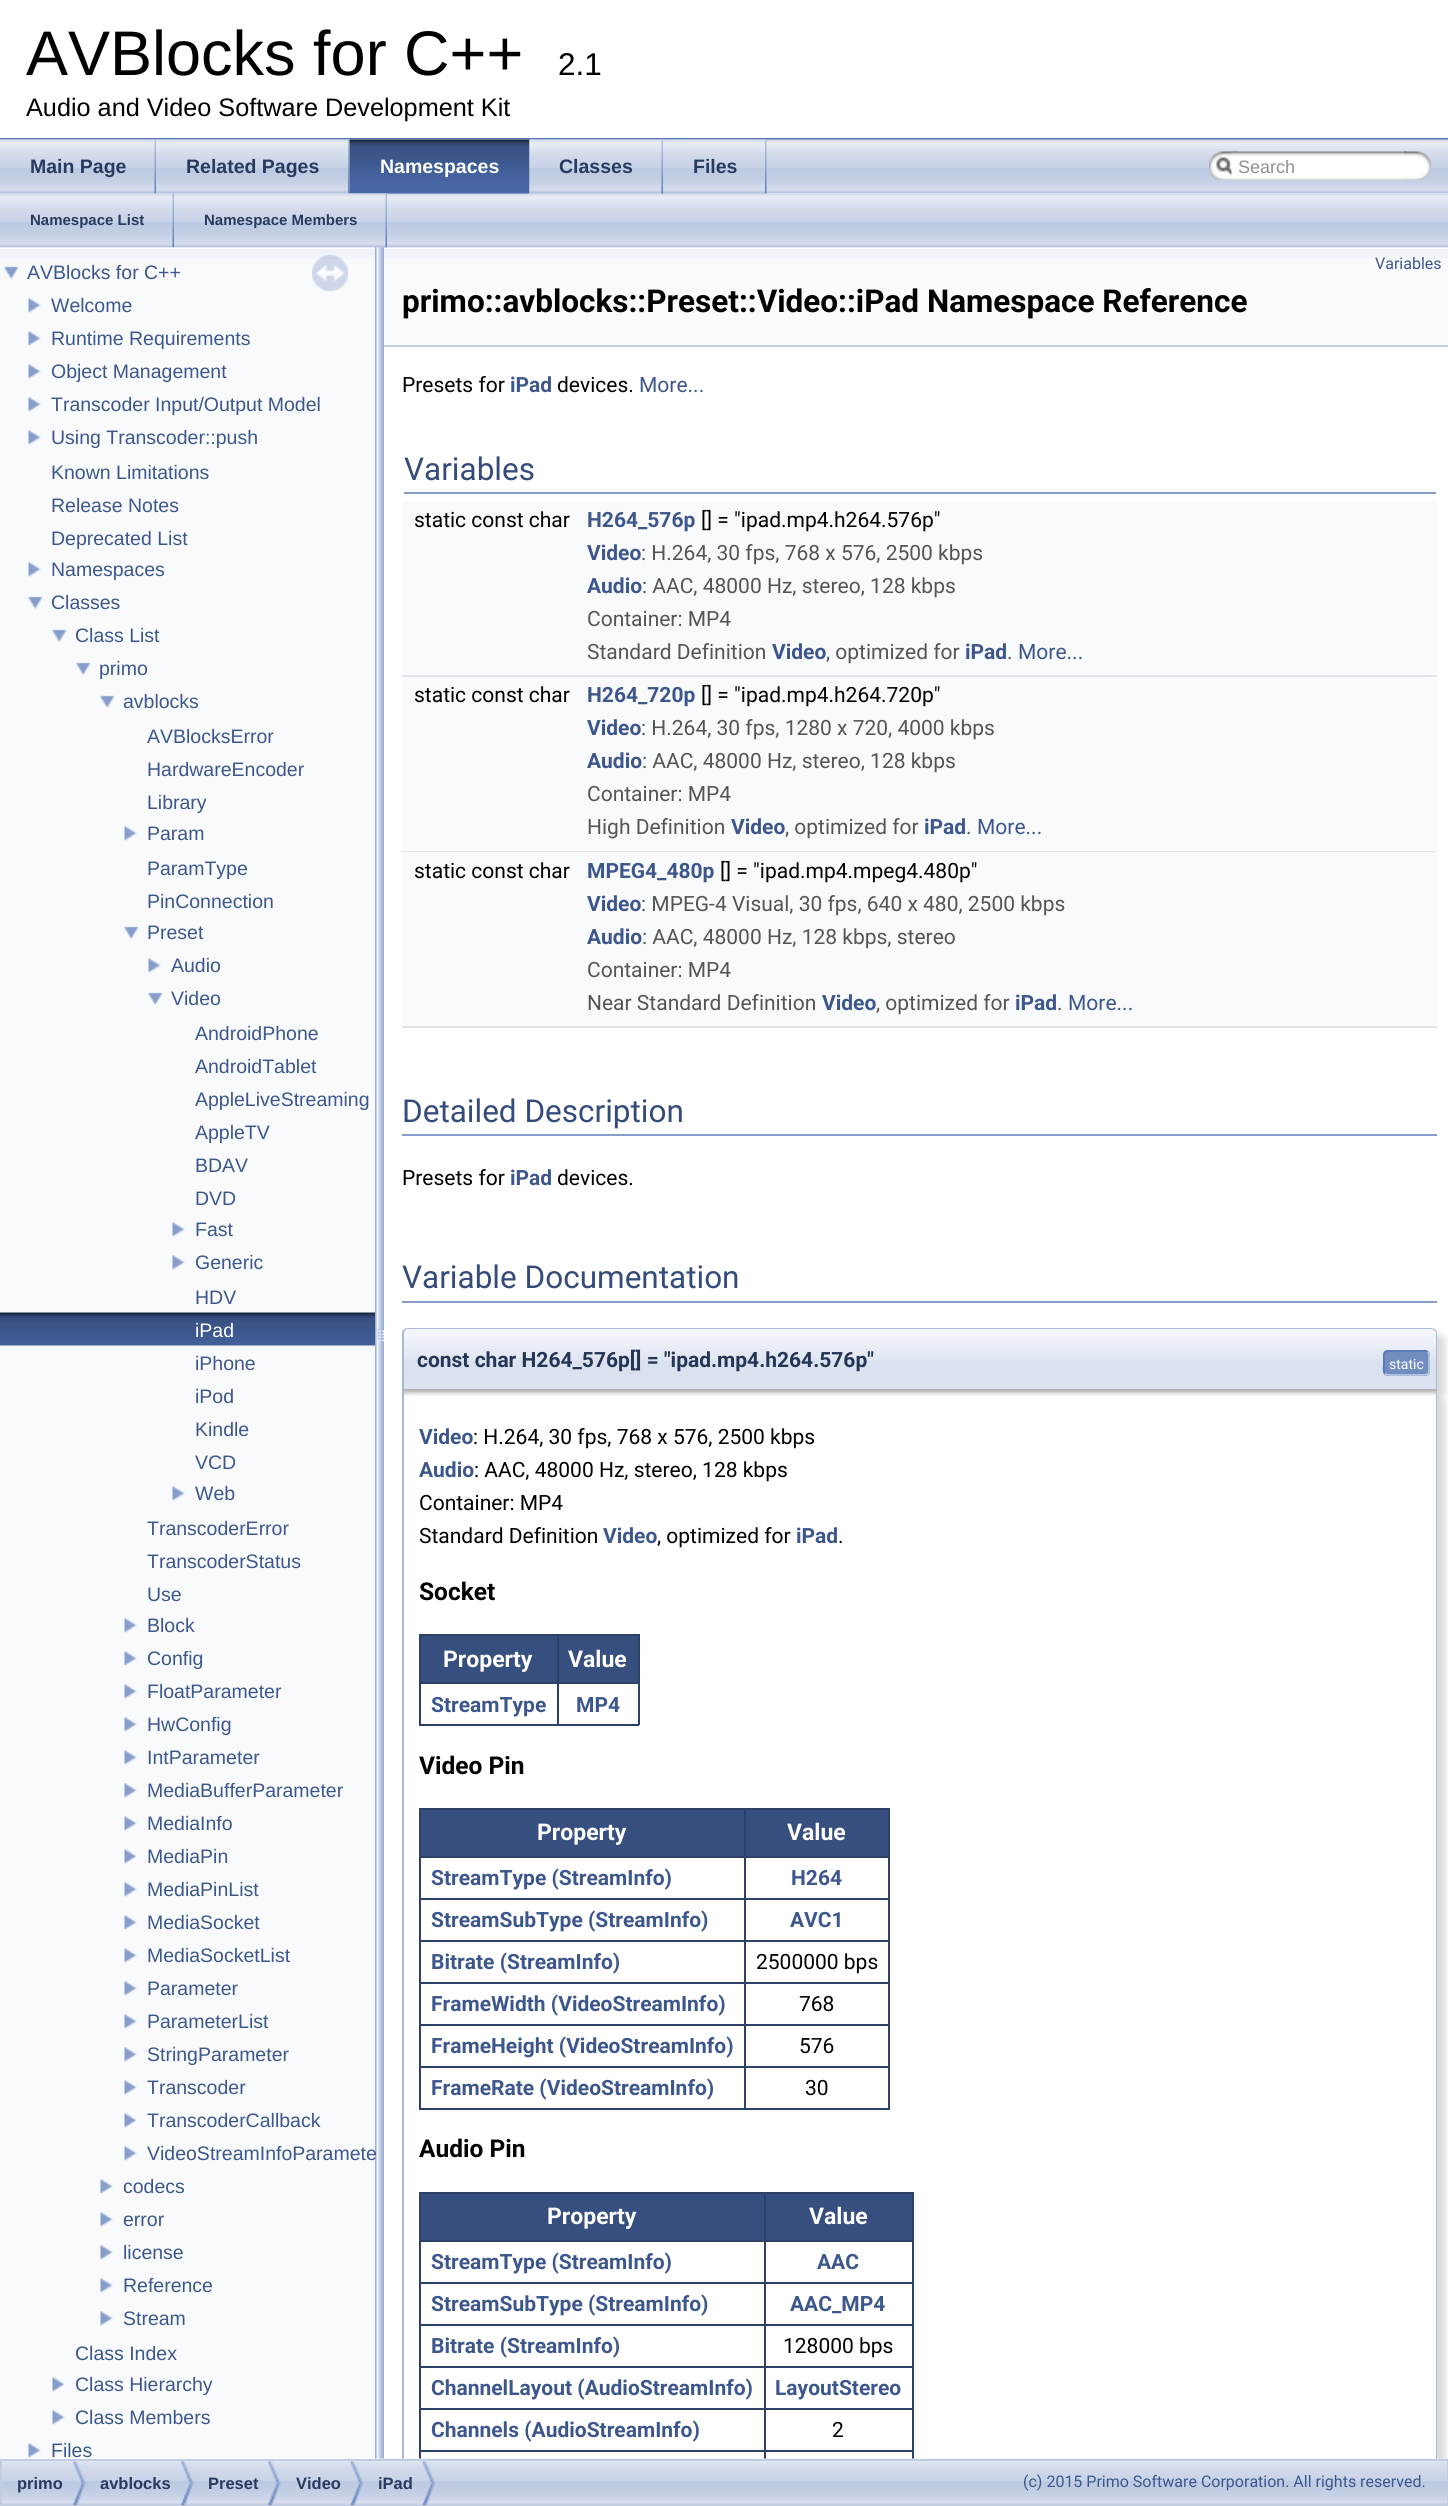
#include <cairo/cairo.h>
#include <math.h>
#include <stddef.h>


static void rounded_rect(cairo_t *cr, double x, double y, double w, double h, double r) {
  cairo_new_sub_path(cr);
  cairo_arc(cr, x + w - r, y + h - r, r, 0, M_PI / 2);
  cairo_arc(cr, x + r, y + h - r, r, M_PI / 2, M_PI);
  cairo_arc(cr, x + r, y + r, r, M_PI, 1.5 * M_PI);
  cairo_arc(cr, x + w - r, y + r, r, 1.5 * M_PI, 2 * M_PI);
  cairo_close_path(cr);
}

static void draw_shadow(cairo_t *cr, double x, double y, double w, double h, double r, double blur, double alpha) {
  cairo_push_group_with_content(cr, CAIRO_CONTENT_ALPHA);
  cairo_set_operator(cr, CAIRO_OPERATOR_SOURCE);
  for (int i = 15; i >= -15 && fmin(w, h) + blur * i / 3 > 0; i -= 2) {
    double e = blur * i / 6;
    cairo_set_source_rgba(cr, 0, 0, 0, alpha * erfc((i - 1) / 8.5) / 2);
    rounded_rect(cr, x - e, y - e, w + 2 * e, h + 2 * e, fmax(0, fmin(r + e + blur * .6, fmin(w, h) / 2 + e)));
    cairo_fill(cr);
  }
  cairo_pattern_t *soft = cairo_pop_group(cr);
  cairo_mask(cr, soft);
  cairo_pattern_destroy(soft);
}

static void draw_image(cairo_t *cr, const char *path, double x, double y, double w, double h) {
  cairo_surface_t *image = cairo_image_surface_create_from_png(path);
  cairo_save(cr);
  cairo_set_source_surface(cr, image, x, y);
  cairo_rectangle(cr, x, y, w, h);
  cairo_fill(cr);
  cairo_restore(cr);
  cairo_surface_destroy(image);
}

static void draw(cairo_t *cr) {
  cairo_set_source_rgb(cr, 1, 1, 1);
  cairo_paint(cr);
  cairo_set_source_rgb(cr, 83 / 255.0, 115 / 255.0, 180 / 255.0);
  cairo_rectangle(cr, 0, 138, 1448, 2);
  cairo_fill(cr);
  draw_image(cr, "images/1.png", 0, 139, 1448, 55);
  draw_image(cr, "images/2.png", 0, 139, 156, 55);
  draw_image(cr, "images/3.png", 154, 140, 2, 54);
  draw_image(cr, "images/4.png", 156, 139, 194, 55);
  draw_image(cr, "images/5.png", 348, 140, 2, 54);
  draw_image(cr, "images/6.png", 349, 139, 181, 55);
  draw_image(cr, "images/7.png", 349, 139, 181, 55);
  draw_image(cr, "images/8.png", 529, 139, 134, 55);
  draw_image(cr, "images/3.png", 661, 140, 2, 54);
  draw_image(cr, "images/9.png", 663, 139, 104, 55);
  draw_image(cr, "images/5.png", 765, 140, 2, 54);
  draw_image(cr, "images/10.png", 1209, 151, 30, 29);
  draw_image(cr, "images/11.png", 1216, 157, 16, 19);
  draw_image(cr, "images/12.png", 1231, 151, 176, 29);
  draw_image(cr, "images/13.png", 1404, 151, 27, 29);
  draw_image(cr, "images/14.png", 0, 194, 1448, 54);
  draw_image(cr, "images/15.png", 0, 193, 174, 55);
  draw_image(cr, "images/16.png", 172, 193, 2, 55);
  draw_image(cr, "images/17.png", 174, 193, 213, 55);
  draw_image(cr, "images/3.png", 385, 194, 2, 54);
  cairo_set_source_rgb(cr, 0, 0, 0);
  draw_shadow(cr, 410, 1335, 1035, 62, 6, 4, 0.15);
  draw_image(cr, "images/25.png", 402, 1329, 1035, 60);
  cairo_set_source_rgb(cr, 168 / 255.0, 184 / 255.0, 217 / 255.0);
  cairo_set_fill_rule(cr, CAIRO_FILL_RULE_EVEN_ODD);
  cairo_new_path(cr);
  cairo_move_to(cr, 408, 1328);
  cairo_line_to(cr, 1431, 1328);
  cairo_curve_to(cr, 1434, 1328, 1437, 1330, 1437, 1334);
  cairo_line_to(cr, 1437, 1389);
  cairo_line_to(cr, 402, 1389);
  cairo_line_to(cr, 402, 1334);
  cairo_curve_to(cr, 402, 1330, 405, 1328, 408, 1328);
  cairo_close_path(cr);
  cairo_move_to(cr, 408, 1329);
  cairo_line_to(cr, 1431, 1329);
  cairo_curve_to(cr, 1433, 1329, 1436, 1331, 1436, 1334);
  cairo_line_to(cr, 1436, 1389);
  cairo_line_to(cr, 404, 1389);
  cairo_line_to(cr, 404, 1334);
  cairo_curve_to(cr, 404, 1331, 406, 1329, 408, 1329);
  cairo_close_path(cr);
  cairo_fill(cr);
  cairo_set_source_rgb(cr, 0, 0, 0);
  draw_shadow(cr, 410, 1397, 1035, 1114, 6, 4, 0.15);
  cairo_set_source_rgb(cr, 1, 1, 1);
  cairo_rectangle(cr, 404, 1389, 1032, 1070);
  cairo_fill(cr);
  draw_image(cr, "images/26.png", 404, 1389, 1032, 7);
  cairo_set_source_rgb(cr, 168 / 255.0, 184 / 255.0, 217 / 255.0);
  cairo_new_path(cr);
  cairo_move_to(cr, 402, 1389);
  cairo_line_to(cr, 1437, 1389);
  cairo_line_to(cr, 1437, 2498);
  cairo_curve_to(cr, 1437, 2501, 1434, 2504, 1431, 2504);
  cairo_line_to(cr, 408, 2504);
  cairo_curve_to(cr, 405, 2504, 402, 2501, 402, 2498);
  cairo_close_path(cr);
  cairo_move_to(cr, 404, 1389);
  cairo_line_to(cr, 1436, 1389);
  cairo_line_to(cr, 1436, 2498);
  cairo_curve_to(cr, 1436, 2500, 1433, 2502, 1431, 2502);
  cairo_line_to(cr, 408, 2502);
  cairo_curve_to(cr, 406, 2502, 404, 2500, 404, 2498);
  cairo_close_path(cr);
  cairo_fill(cr);
  cairo_set_source_rgb(cr, 45 / 255.0, 64 / 255.0, 104 / 255.0);
  cairo_rectangle(cr, 764, 2450, 150, 2);
  cairo_fill(cr);
  cairo_rectangle(cr, 764, 2450, 2, 9);
  cairo_fill(cr);
  cairo_rectangle(cr, 419, 2450, 346, 2);
  cairo_fill(cr);
  cairo_rectangle(cr, 419, 2450, 2, 9);
  cairo_fill(cr);
  cairo_rectangle(cr, 912, 2450, 2, 9);
  cairo_fill(cr);
  draw_image(cr, "images/27.png", 2, 2458, 1446, 47);
  cairo_set_source_rgb(cr, 249 / 255.0, 250 / 255.0, 252 / 255.0);
  cairo_rectangle(cr, 0, 259, 375, 2200);
  cairo_fill(cr);
  draw_image(cr, "images/18.png", 0, 247, 375, 12);
  draw_image(cr, "images/19.png", 312, 255, 36, 36);
  draw_image(cr, "images/20.png", 4, 266, 15, 14);
  draw_image(cr, "images/21.png", 28, 298, 13, 15);
  draw_image(cr, "images/21.png", 28, 331, 13, 15);
  draw_image(cr, "images/21.png", 28, 364, 13, 15);
  draw_image(cr, "images/21.png", 28, 397, 13, 15);
  draw_image(cr, "images/21.png", 28, 430, 13, 15);
  draw_image(cr, "images/21.png", 28, 562, 13, 15);
  draw_image(cr, "images/20.png", 28, 596, 15, 14);
  draw_image(cr, "images/20.png", 52, 629, 15, 14);
  draw_image(cr, "images/20.png", 76, 662, 15, 14);
  draw_image(cr, "images/20.png", 100, 695, 15, 14);
  draw_image(cr, "images/21.png", 124, 826, 13, 15);
  draw_image(cr, "images/20.png", 124, 926, 15, 14);
  draw_image(cr, "images/21.png", 148, 958, 13, 15);
  draw_image(cr, "images/20.png", 148, 992, 15, 14);
  draw_image(cr, "images/21.png", 172, 1222, 13, 15);
  draw_image(cr, "images/21.png", 172, 1255, 13, 15);
  draw_image(cr, "images/22.png", 0, 1312, 375, 34);
  draw_image(cr, "images/21.png", 172, 1486, 13, 15);
  draw_image(cr, "images/21.png", 124, 1618, 13, 15);
  draw_image(cr, "images/21.png", 124, 1651, 13, 15);
  draw_image(cr, "images/21.png", 124, 1684, 13, 15);
  draw_image(cr, "images/21.png", 124, 1717, 13, 15);
  draw_image(cr, "images/21.png", 124, 1750, 13, 15);
  draw_image(cr, "images/21.png", 124, 1783, 13, 15);
  draw_image(cr, "images/21.png", 124, 1816, 13, 15);
  draw_image(cr, "images/21.png", 124, 1849, 13, 15);
  draw_image(cr, "images/21.png", 124, 1882, 13, 15);
  draw_image(cr, "images/21.png", 124, 1915, 13, 15);
  draw_image(cr, "images/21.png", 124, 1948, 13, 15);
  draw_image(cr, "images/21.png", 124, 1981, 13, 15);
  draw_image(cr, "images/21.png", 124, 2014, 13, 15);
  draw_image(cr, "images/21.png", 124, 2047, 13, 15);
  draw_image(cr, "images/21.png", 124, 2080, 13, 15);
  draw_image(cr, "images/21.png", 124, 2113, 13, 15);
  draw_image(cr, "images/21.png", 124, 2146, 13, 15);
  draw_image(cr, "images/21.png", 100, 2179, 13, 15);
  draw_image(cr, "images/21.png", 100, 2212, 13, 15);
  draw_image(cr, "images/21.png", 100, 2245, 13, 15);
  draw_image(cr, "images/21.png", 100, 2278, 13, 15);
  draw_image(cr, "images/21.png", 100, 2311, 13, 15);
  draw_image(cr, "images/21.png", 52, 2377, 13, 15);
  draw_image(cr, "images/21.png", 52, 2410, 13, 15);
  draw_image(cr, "images/21.png", 28, 2443, 13, 15);
  draw_image(cr, "images/23.png", 375, 247, 9, 2212);
  cairo_rectangle(cr, 384, 259, 1064, 86);
  cairo_fill(cr);
  draw_image(cr, "images/24.png", 384, 247, 1064, 12);
  cairo_set_source_rgb(cr, 196 / 255.0, 207 / 255.0, 229 / 255.0);
  cairo_rectangle(cr, 384, 345, 1064, 2);
  cairo_fill(cr);
  cairo_set_source_rgb(cr, 135 / 255.0, 158 / 255.0, 203 / 255.0);
  cairo_rectangle(cr, 404, 492, 1032, 2);
  cairo_fill(cr);
  cairo_set_source_rgb(cr, 249 / 255.0, 250 / 255.0, 252 / 255.0);
  cairo_rectangle(cr, 402, 501, 1035, 35);
  cairo_fill(cr);
  cairo_rectangle(cr, 402, 536, 1035, 138);
  cairo_fill(cr);
  cairo_set_source_rgb(cr, 222 / 255.0, 228 / 255.0, 240 / 255.0);
  cairo_rectangle(cr, 402, 675, 1035, 2);
  cairo_fill(cr);
  cairo_set_source_rgb(cr, 249 / 255.0, 250 / 255.0, 252 / 255.0);
  cairo_rectangle(cr, 402, 677, 1035, 34);
  cairo_fill(cr);
  cairo_rectangle(cr, 402, 711, 1035, 138);
  cairo_fill(cr);
  cairo_set_source_rgb(cr, 222 / 255.0, 228 / 255.0, 240 / 255.0);
  cairo_rectangle(cr, 402, 851, 1035, 1);
  cairo_fill(cr);
  cairo_set_source_rgb(cr, 249 / 255.0, 250 / 255.0, 252 / 255.0);
  cairo_rectangle(cr, 402, 852, 1035, 35);
  cairo_fill(cr);
  cairo_rectangle(cr, 402, 887, 1035, 138);
  cairo_fill(cr);
  cairo_set_source_rgb(cr, 222 / 255.0, 228 / 255.0, 240 / 255.0);
  cairo_rectangle(cr, 402, 1026, 1035, 2);
  cairo_fill(cr);
  cairo_set_source_rgb(cr, 135 / 255.0, 158 / 255.0, 203 / 255.0);
  cairo_rectangle(cr, 402, 1134, 1035, 2);
  cairo_fill(cr);
  cairo_rectangle(cr, 402, 1301, 1035, 2);
  cairo_fill(cr);
  cairo_set_source_rgb(cr, 114 / 255.0, 141 / 255.0, 193 / 255.0);
  rounded_rect(cr, 1383, 1350, 47, 26, 5);
  cairo_fill(cr);
  cairo_new_path(cr);
  cairo_move_to(cr, 1427.5, 1352);
  cairo_curve_to(cr, 1430, 1354, 1429, 1360, 1429, 1363);
  cairo_curve_to(cr, 1429, 1374.5, 1430.5, 1375, 1419, 1375);
  cairo_line_to(cr, 1394, 1375);
  cairo_curve_to(cr, 1392, 1375, 1387, 1375.5, 1385, 1373.5);
  cairo_set_source_rgb(cr, 196 / 255.0, 207 / 255.0, 229 / 255.0);
  cairo_set_line_width(cr, 1.5);
  cairo_stroke(cr);
  cairo_new_path(cr);
  cairo_move_to(cr, 1385, 1373.5);
  cairo_curve_to(cr, 1382.5, 1371.5, 1384, 1365.5, 1384, 1363);
  cairo_curve_to(cr, 1384, 1351, 1382, 1351, 1394, 1351);
  cairo_line_to(cr, 1419, 1351);
  cairo_curve_to(cr, 1420.5, 1351, 1425.5, 1350, 1427.5, 1352);
  cairo_set_source_rgb(cr, 83 / 255.0, 115 / 255.0, 180 / 255.0);
  cairo_stroke(cr);
  cairo_set_source_rgb(cr, 55 / 255.0, 79 / 255.0, 127 / 255.0);
  cairo_rectangle(cr, 421, 1636, 136, 46);
  cairo_fill(cr);
  cairo_set_source_rgb(cr, 45 / 255.0, 64 / 255.0, 104 / 255.0);
  cairo_rectangle(cr, 557, 1634, 82, 2);
  cairo_fill(cr);
  cairo_rectangle(cr, 557, 1682, 82, 2);
  cairo_fill(cr);
  cairo_rectangle(cr, 638, 1682, 2, 43);
  cairo_fill(cr);
  cairo_rectangle(cr, 557, 1724, 82, 2);
  cairo_fill(cr);
  cairo_rectangle(cr, 557, 1682, 2, 43);
  cairo_fill(cr);
  cairo_rectangle(cr, 419, 1682, 139, 2);
  cairo_fill(cr);
  cairo_rectangle(cr, 557, 1634, 2, 49);
  cairo_fill(cr);
  cairo_rectangle(cr, 419, 1634, 139, 2);
  cairo_fill(cr);
  cairo_rectangle(cr, 419, 1724, 139, 2);
  cairo_fill(cr);
  cairo_rectangle(cr, 419, 1682, 2, 43);
  cairo_fill(cr);
  cairo_rectangle(cr, 419, 1634, 2, 49);
  cairo_fill(cr);
  cairo_set_source_rgb(cr, 55 / 255.0, 79 / 255.0, 127 / 255.0);
  cairo_rectangle(cr, 559, 1636, 79, 46);
  cairo_fill(cr);
  cairo_set_source_rgb(cr, 45 / 255.0, 64 / 255.0, 104 / 255.0);
  cairo_rectangle(cr, 638, 1634, 2, 49);
  cairo_fill(cr);
  cairo_set_source_rgb(cr, 55 / 255.0, 79 / 255.0, 127 / 255.0);
  cairo_rectangle(cr, 421, 1810, 323, 46);
  cairo_fill(cr);
  cairo_set_source_rgb(cr, 45 / 255.0, 64 / 255.0, 104 / 255.0);
  cairo_rectangle(cr, 744, 1808, 146, 2);
  cairo_fill(cr);
  cairo_rectangle(cr, 744, 1856, 146, 2);
  cairo_fill(cr);
  cairo_rectangle(cr, 744, 1898, 146, 2);
  cairo_fill(cr);
  cairo_rectangle(cr, 744, 1940, 146, 2);
  cairo_fill(cr);
  cairo_rectangle(cr, 744, 1982, 146, 2);
  cairo_fill(cr);
  cairo_rectangle(cr, 744, 2024, 146, 2);
  cairo_fill(cr);
  cairo_rectangle(cr, 744, 2066, 146, 2);
  cairo_fill(cr);
  cairo_rectangle(cr, 888, 2066, 2, 43);
  cairo_fill(cr);
  cairo_rectangle(cr, 744, 2108, 146, 2);
  cairo_fill(cr);
  cairo_rectangle(cr, 744, 2066, 2, 43);
  cairo_fill(cr);
  cairo_rectangle(cr, 419, 2066, 327, 2);
  cairo_fill(cr);
  cairo_rectangle(cr, 744, 2024, 2, 43);
  cairo_fill(cr);
  cairo_rectangle(cr, 419, 2024, 327, 2);
  cairo_fill(cr);
  cairo_rectangle(cr, 744, 1982, 2, 43);
  cairo_fill(cr);
  cairo_rectangle(cr, 419, 1982, 327, 2);
  cairo_fill(cr);
  cairo_rectangle(cr, 744, 1940, 2, 43);
  cairo_fill(cr);
  cairo_rectangle(cr, 419, 1940, 327, 2);
  cairo_fill(cr);
  cairo_rectangle(cr, 744, 1898, 2, 43);
  cairo_fill(cr);
  cairo_rectangle(cr, 419, 1898, 327, 2);
  cairo_fill(cr);
  cairo_rectangle(cr, 744, 1856, 2, 43);
  cairo_fill(cr);
  cairo_rectangle(cr, 419, 1856, 327, 2);
  cairo_fill(cr);
  cairo_rectangle(cr, 744, 1808, 2, 49);
  cairo_fill(cr);
  cairo_rectangle(cr, 419, 1808, 327, 2);
  cairo_fill(cr);
  cairo_rectangle(cr, 419, 2108, 327, 2);
  cairo_fill(cr);
  cairo_rectangle(cr, 419, 2066, 2, 43);
  cairo_fill(cr);
  cairo_rectangle(cr, 419, 2024, 2, 43);
  cairo_fill(cr);
  cairo_rectangle(cr, 419, 1982, 2, 43);
  cairo_fill(cr);
  cairo_rectangle(cr, 419, 1940, 2, 43);
  cairo_fill(cr);
  cairo_rectangle(cr, 419, 1898, 2, 43);
  cairo_fill(cr);
  cairo_rectangle(cr, 419, 1856, 2, 43);
  cairo_fill(cr);
  cairo_rectangle(cr, 419, 1808, 2, 49);
  cairo_fill(cr);
  cairo_set_source_rgb(cr, 55 / 255.0, 79 / 255.0, 127 / 255.0);
  cairo_rectangle(cr, 746, 1810, 142, 46);
  cairo_fill(cr);
  cairo_set_source_rgb(cr, 45 / 255.0, 64 / 255.0, 104 / 255.0);
  cairo_rectangle(cr, 888, 2024, 2, 43);
  cairo_fill(cr);
  cairo_rectangle(cr, 888, 1982, 2, 43);
  cairo_fill(cr);
  cairo_rectangle(cr, 888, 1940, 2, 43);
  cairo_fill(cr);
  cairo_rectangle(cr, 888, 1898, 2, 43);
  cairo_fill(cr);
  cairo_rectangle(cr, 888, 1856, 2, 43);
  cairo_fill(cr);
  cairo_rectangle(cr, 888, 1808, 2, 49);
  cairo_fill(cr);
  cairo_set_source_rgb(cr, 55 / 255.0, 79 / 255.0, 127 / 255.0);
  cairo_rectangle(cr, 421, 2194, 343, 46);
  cairo_fill(cr);
  cairo_set_source_rgb(cr, 45 / 255.0, 64 / 255.0, 104 / 255.0);
  cairo_rectangle(cr, 764, 2192, 150, 2);
  cairo_fill(cr);
  cairo_rectangle(cr, 764, 2240, 150, 2);
  cairo_fill(cr);
  cairo_rectangle(cr, 764, 2282, 150, 2);
  cairo_fill(cr);
  cairo_rectangle(cr, 764, 2324, 150, 2);
  cairo_fill(cr);
  cairo_rectangle(cr, 764, 2366, 150, 2);
  cairo_fill(cr);
  cairo_rectangle(cr, 764, 2408, 150, 2);
  cairo_fill(cr);
  cairo_rectangle(cr, 764, 2408, 2, 43);
  cairo_fill(cr);
  cairo_rectangle(cr, 419, 2408, 346, 2);
  cairo_fill(cr);
  cairo_rectangle(cr, 764, 2366, 2, 43);
  cairo_fill(cr);
  cairo_rectangle(cr, 419, 2366, 346, 2);
  cairo_fill(cr);
  cairo_rectangle(cr, 764, 2324, 2, 43);
  cairo_fill(cr);
  cairo_rectangle(cr, 419, 2324, 346, 2);
  cairo_fill(cr);
  cairo_rectangle(cr, 764, 2282, 2, 43);
  cairo_fill(cr);
  cairo_rectangle(cr, 419, 2282, 346, 2);
  cairo_fill(cr);
  cairo_rectangle(cr, 764, 2240, 2, 43);
  cairo_fill(cr);
  cairo_rectangle(cr, 419, 2240, 346, 2);
  cairo_fill(cr);
  cairo_rectangle(cr, 764, 2192, 2, 49);
  cairo_fill(cr);
  cairo_rectangle(cr, 419, 2192, 346, 2);
  cairo_fill(cr);
  cairo_rectangle(cr, 419, 2408, 2, 43);
  cairo_fill(cr);
  cairo_rectangle(cr, 419, 2366, 2, 43);
  cairo_fill(cr);
  cairo_rectangle(cr, 419, 2324, 2, 43);
  cairo_fill(cr);
  cairo_rectangle(cr, 419, 2282, 2, 43);
  cairo_fill(cr);
  cairo_rectangle(cr, 419, 2240, 2, 43);
  cairo_fill(cr);
  cairo_rectangle(cr, 419, 2192, 2, 49);
  cairo_fill(cr);
  cairo_set_source_rgb(cr, 55 / 255.0, 79 / 255.0, 127 / 255.0);
  cairo_rectangle(cr, 766, 2194, 146, 46);
  cairo_fill(cr);
  cairo_set_source_rgb(cr, 45 / 255.0, 64 / 255.0, 104 / 255.0);
  cairo_rectangle(cr, 912, 2408, 2, 43);
  cairo_fill(cr);
  cairo_rectangle(cr, 912, 2366, 2, 43);
  cairo_fill(cr);
  cairo_rectangle(cr, 912, 2324, 2, 43);
  cairo_fill(cr);
  cairo_rectangle(cr, 912, 2282, 2, 43);
  cairo_fill(cr);
  cairo_rectangle(cr, 912, 2240, 2, 43);
  cairo_fill(cr);
  cairo_rectangle(cr, 912, 2192, 2, 49);
  cairo_fill(cr);
  cairo_rectangle(cr, 1, 2460, 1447, 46);
  cairo_set_source_rgb(cr, 194 / 255.0, 205 / 255.0, 228 / 255.0);
  cairo_set_line_width(cr, 2);
  cairo_stroke(cr);
  draw_image(cr, "images/28.png", 73, 2461, 13, 44);
  draw_image(cr, "images/28.png", 181, 2461, 13, 44);
  draw_image(cr, "images/28.png", 268, 2461, 13, 44);
  draw_image(cr, "images/29.png", 351, 2461, 12, 44);
  draw_image(cr, "images/29.png", 423, 2461, 12, 44);
  cairo_select_font_face(cr, "Liberation Sans", CAIRO_FONT_SLANT_NORMAL, CAIRO_FONT_WEIGHT_NORMAL);
  cairo_set_font_size(cr, 63);
  cairo_set_source_rgb(cr, 0, 0, 0);
  cairo_move_to(cr, 26, 75);
  cairo_show_text(cr, "AVBlocks for C++");
  cairo_set_font_size(cr, 31.5);
  cairo_move_to(cr, 558, 75);
  cairo_show_text(cr, "2.1");
  cairo_set_font_size(cr, 25.25);
  cairo_move_to(cr, 26, 116);
  cairo_show_text(cr, "Audio and Video Software Development Kit");
  cairo_select_font_face(cr, "Liberation Sans", CAIRO_FONT_SLANT_NORMAL, CAIRO_FONT_WEIGHT_BOLD);
  cairo_set_font_size(cr, 19.5);
  cairo_set_source_rgb(cr, 40 / 255.0, 58 / 255.0, 93 / 255.0);
  cairo_move_to(cr, 30, 173);
  cairo_show_text(cr, "Main Page");
  cairo_move_to(cr, 186, 173);
  cairo_show_text(cr, "Related Pages");
  cairo_set_source_rgb(cr, 1, 1, 1);
  cairo_move_to(cr, 380, 173);
  cairo_show_text(cr, "Namespaces");
  cairo_set_source_rgb(cr, 40 / 255.0, 58 / 255.0, 93 / 255.0);
  cairo_move_to(cr, 559, 173);
  cairo_show_text(cr, "Classes");
  cairo_move_to(cr, 693, 173);
  cairo_show_text(cr, "Files");
  cairo_select_font_face(cr, "Liberation Sans", CAIRO_FONT_SLANT_NORMAL, CAIRO_FONT_WEIGHT_NORMAL);
  cairo_set_font_size(cr, 18);
  cairo_set_source_rgb(cr, 144 / 255.0, 144 / 255.0, 144 / 255.0);
  cairo_move_to(cr, 1238, 173);
  cairo_show_text(cr, "Search");
  cairo_select_font_face(cr, "Liberation Sans", CAIRO_FONT_SLANT_NORMAL, CAIRO_FONT_WEIGHT_BOLD);
  cairo_set_font_size(cr, 15);
  cairo_set_source_rgb(cr, 40 / 255.0, 58 / 255.0, 93 / 255.0);
  cairo_move_to(cr, 30, 225);
  cairo_show_text(cr, "Namespace List");
  cairo_move_to(cr, 204, 225);
  cairo_show_text(cr, "Namespace Members");
  cairo_select_font_face(cr, "Liberation Sans", CAIRO_FONT_SLANT_NORMAL, CAIRO_FONT_WEIGHT_NORMAL);
  cairo_set_font_size(cr, 19.5);
  cairo_set_source_rgb(cr, 61 / 255.0, 87 / 255.0, 140 / 255.0);
  cairo_move_to(cr, 27, 279);
  cairo_show_text(cr, "AVBlocks for C++");
  cairo_move_to(cr, 51, 312);
  cairo_show_text(cr, "Welcome");
  cairo_move_to(cr, 51, 345);
  cairo_show_text(cr, "Runtime Requirements");
  cairo_move_to(cr, 51, 378);
  cairo_show_text(cr, "Object Management");
  cairo_move_to(cr, 51, 411);
  cairo_show_text(cr, "Transcoder Input/Output Model");
  cairo_move_to(cr, 51, 444);
  cairo_show_text(cr, "Using Transcoder::push");
  cairo_move_to(cr, 51, 479);
  cairo_show_text(cr, "Known Limitations");
  cairo_move_to(cr, 51, 512);
  cairo_show_text(cr, "Release Notes");
  cairo_move_to(cr, 51, 545);
  cairo_show_text(cr, "Deprecated List");
  cairo_move_to(cr, 51, 576);
  cairo_show_text(cr, "Namespaces");
  cairo_move_to(cr, 51, 609);
  cairo_show_text(cr, "Classes");
  cairo_move_to(cr, 75, 642);
  cairo_show_text(cr, "Class List");
  cairo_move_to(cr, 99, 675);
  cairo_show_text(cr, "primo");
  cairo_move_to(cr, 123, 708);
  cairo_show_text(cr, "avblocks");
  cairo_move_to(cr, 147, 743);
  cairo_show_text(cr, "AVBlocksError");
  cairo_move_to(cr, 147, 776);
  cairo_show_text(cr, "HardwareEncoder");
  cairo_move_to(cr, 147, 809);
  cairo_show_text(cr, "Library");
  cairo_move_to(cr, 147, 840);
  cairo_show_text(cr, "Param");
  cairo_move_to(cr, 147, 875);
  cairo_show_text(cr, "ParamType");
  cairo_move_to(cr, 147, 908);
  cairo_show_text(cr, "PinConnection");
  cairo_move_to(cr, 147, 939);
  cairo_show_text(cr, "Preset");
  cairo_move_to(cr, 171, 972);
  cairo_show_text(cr, "Audio");
  cairo_move_to(cr, 171, 1005);
  cairo_show_text(cr, "Video");
  cairo_move_to(cr, 195, 1040);
  cairo_show_text(cr, "AndroidPhone");
  cairo_move_to(cr, 195, 1073);
  cairo_show_text(cr, "AndroidTablet");
  cairo_move_to(cr, 195, 1106);
  cairo_show_text(cr, "AppleLiveStreaming");
  cairo_move_to(cr, 195, 1139);
  cairo_show_text(cr, "AppleTV");
  cairo_move_to(cr, 195, 1172);
  cairo_show_text(cr, "BDAV");
  cairo_move_to(cr, 195, 1205);
  cairo_show_text(cr, "DVD");
  cairo_move_to(cr, 195, 1236);
  cairo_show_text(cr, "Fast");
  cairo_move_to(cr, 195, 1269);
  cairo_show_text(cr, "Generic");
  cairo_move_to(cr, 195, 1304);
  cairo_show_text(cr, "HDV");
  cairo_set_source_rgb(cr, 1, 1, 1);
  cairo_move_to(cr, 195, 1337);
  cairo_show_text(cr, "iPad");
  cairo_set_source_rgb(cr, 61 / 255.0, 87 / 255.0, 140 / 255.0);
  cairo_move_to(cr, 195, 1370);
  cairo_show_text(cr, "iPhone");
  cairo_move_to(cr, 195, 1403);
  cairo_show_text(cr, "iPod");
  cairo_move_to(cr, 195, 1436);
  cairo_show_text(cr, "Kindle");
  cairo_move_to(cr, 195, 1469);
  cairo_show_text(cr, "VCD");
  cairo_move_to(cr, 195, 1500);
  cairo_show_text(cr, "Web");
  cairo_move_to(cr, 147, 1535);
  cairo_show_text(cr, "TranscoderError");
  cairo_move_to(cr, 147, 1568);
  cairo_show_text(cr, "TranscoderStatus");
  cairo_move_to(cr, 147, 1601);
  cairo_show_text(cr, "Use");
  cairo_move_to(cr, 147, 1632);
  cairo_show_text(cr, "Block");
  cairo_move_to(cr, 147, 1665);
  cairo_show_text(cr, "Config");
  cairo_move_to(cr, 147, 1698);
  cairo_show_text(cr, "FloatParameter");
  cairo_move_to(cr, 147, 1731);
  cairo_show_text(cr, "HwConfig");
  cairo_move_to(cr, 147, 1764);
  cairo_show_text(cr, "IntParameter");
  cairo_move_to(cr, 147, 1797);
  cairo_show_text(cr, "MediaBufferParameter");
  cairo_move_to(cr, 147, 1830);
  cairo_show_text(cr, "MediaInfo");
  cairo_move_to(cr, 147, 1863);
  cairo_show_text(cr, "MediaPin");
  cairo_move_to(cr, 147, 1896);
  cairo_show_text(cr, "MediaPinList");
  cairo_move_to(cr, 147, 1929);
  cairo_show_text(cr, "MediaSocket");
  cairo_move_to(cr, 147, 1962);
  cairo_show_text(cr, "MediaSocketList");
  cairo_move_to(cr, 147, 1995);
  cairo_show_text(cr, "Parameter");
  cairo_move_to(cr, 147, 2028);
  cairo_show_text(cr, "ParameterList");
  cairo_move_to(cr, 147, 2061);
  cairo_show_text(cr, "StringParameter");
  cairo_move_to(cr, 147, 2094);
  cairo_show_text(cr, "Transcoder");
  cairo_move_to(cr, 147, 2127);
  cairo_show_text(cr, "TranscoderCallback");
  cairo_move_to(cr, 147, 2160);
  cairo_show_text(cr, "VideoStreamInfoParamete");
  cairo_move_to(cr, 123, 2193);
  cairo_show_text(cr, "codecs");
  cairo_move_to(cr, 123, 2226);
  cairo_show_text(cr, "error");
  cairo_move_to(cr, 123, 2259);
  cairo_show_text(cr, "license");
  cairo_move_to(cr, 123, 2292);
  cairo_show_text(cr, "Reference");
  cairo_move_to(cr, 123, 2325);
  cairo_show_text(cr, "Stream");
  cairo_move_to(cr, 75, 2360);
  cairo_show_text(cr, "Class Index");
  cairo_move_to(cr, 75, 2391);
  cairo_show_text(cr, "Class Hierarchy");
  cairo_move_to(cr, 75, 2424);
  cairo_show_text(cr, "Class Members");
  cairo_move_to(cr, 51, 2457);
  cairo_show_text(cr, "Files");
  cairo_select_font_face(cr, "Roboto", CAIRO_FONT_SLANT_NORMAL, CAIRO_FONT_WEIGHT_NORMAL);
  cairo_set_font_size(cr, 16);
  cairo_move_to(cr, 1375, 269);
  cairo_show_text(cr, "Variables");
  cairo_select_font_face(cr, "Roboto", CAIRO_FONT_SLANT_NORMAL, CAIRO_FONT_WEIGHT_BOLD);
  cairo_set_font_size(cr, 31.5);
  cairo_set_source_rgb(cr, 0, 0, 0);
  cairo_move_to(cr, 402, 312);
  cairo_show_text(cr, "primo::avblocks::Preset::Video::iPad Namespace Reference");
  cairo_select_font_face(cr, "Roboto", CAIRO_FONT_SLANT_NORMAL, CAIRO_FONT_WEIGHT_NORMAL);
  cairo_set_font_size(cr, 21);
  cairo_move_to(cr, 402, 392);
  cairo_show_text(cr, "Presets for");
  cairo_select_font_face(cr, "Roboto", CAIRO_FONT_SLANT_NORMAL, CAIRO_FONT_WEIGHT_BOLD);
  cairo_set_source_rgb(cr, 61 / 255.0, 87 / 255.0, 140 / 255.0);
  cairo_move_to(cr, 510, 392);
  cairo_show_text(cr, "iPad");
  cairo_select_font_face(cr, "Roboto", CAIRO_FONT_SLANT_NORMAL, CAIRO_FONT_WEIGHT_NORMAL);
  cairo_set_source_rgb(cr, 0, 0, 0);
  cairo_move_to(cr, 557, 392);
  cairo_show_text(cr, "devices.");
  cairo_set_source_rgb(cr, 61 / 255.0, 87 / 255.0, 140 / 255.0);
  cairo_move_to(cr, 639, 392);
  cairo_show_text(cr, "More...");
  cairo_set_font_size(cr, 31.5);
  cairo_set_source_rgb(cr, 53 / 255.0, 76 / 255.0, 123 / 255.0);
  cairo_move_to(cr, 404, 480);
  cairo_show_text(cr, "Variables");
  cairo_set_font_size(cr, 21);
  cairo_set_source_rgb(cr, 0, 0, 0);
  cairo_move_to(cr, 414, 527);
  cairo_show_text(cr, "static const char");
  cairo_select_font_face(cr, "Roboto", CAIRO_FONT_SLANT_NORMAL, CAIRO_FONT_WEIGHT_BOLD);
  cairo_set_source_rgb(cr, 61 / 255.0, 87 / 255.0, 140 / 255.0);
  cairo_move_to(cr, 587, 527);
  cairo_show_text(cr, "H264_576p");
  cairo_select_font_face(cr, "Roboto", CAIRO_FONT_SLANT_NORMAL, CAIRO_FONT_WEIGHT_NORMAL);
  cairo_set_source_rgb(cr, 0, 0, 0);
  cairo_move_to(cr, 701, 527);
  cairo_show_text(cr, "[] = \"ipad.mp4.h264.576p\"");
  cairo_select_font_face(cr, "Roboto", CAIRO_FONT_SLANT_NORMAL, CAIRO_FONT_WEIGHT_BOLD);
  cairo_set_source_rgb(cr, 61 / 255.0, 87 / 255.0, 140 / 255.0);
  cairo_move_to(cr, 587, 560);
  cairo_show_text(cr, "Video");
  cairo_select_font_face(cr, "Roboto", CAIRO_FONT_SLANT_NORMAL, CAIRO_FONT_WEIGHT_NORMAL);
  cairo_set_source_rgb(cr, 85 / 255.0, 85 / 255.0, 85 / 255.0);
  cairo_move_to(cr, 641, 560);
  cairo_show_text(cr, ": H.264, 30 fps, 768 x 576, 2500 kbps");
  cairo_select_font_face(cr, "Roboto", CAIRO_FONT_SLANT_NORMAL, CAIRO_FONT_WEIGHT_BOLD);
  cairo_set_source_rgb(cr, 61 / 255.0, 87 / 255.0, 140 / 255.0);
  cairo_move_to(cr, 587, 593);
  cairo_show_text(cr, "Audio");
  cairo_select_font_face(cr, "Roboto", CAIRO_FONT_SLANT_NORMAL, CAIRO_FONT_WEIGHT_NORMAL);
  cairo_set_source_rgb(cr, 85 / 255.0, 85 / 255.0, 85 / 255.0);
  cairo_move_to(cr, 642, 593);
  cairo_show_text(cr, ": AAC, 48000 Hz, stereo, 128 kbps");
  cairo_move_to(cr, 587, 626);
  cairo_show_text(cr, "Container: MP4");
  cairo_move_to(cr, 587, 659);
  cairo_show_text(cr, "Standard Definition");
  cairo_select_font_face(cr, "Roboto", CAIRO_FONT_SLANT_NORMAL, CAIRO_FONT_WEIGHT_BOLD);
  cairo_set_source_rgb(cr, 61 / 255.0, 87 / 255.0, 140 / 255.0);
  cairo_move_to(cr, 772, 659);
  cairo_show_text(cr, "Video");
  cairo_select_font_face(cr, "Roboto", CAIRO_FONT_SLANT_NORMAL, CAIRO_FONT_WEIGHT_NORMAL);
  cairo_set_source_rgb(cr, 85 / 255.0, 85 / 255.0, 85 / 255.0);
  cairo_move_to(cr, 826, 659);
  cairo_show_text(cr, ", optimized for");
  cairo_select_font_face(cr, "Roboto", CAIRO_FONT_SLANT_NORMAL, CAIRO_FONT_WEIGHT_BOLD);
  cairo_set_source_rgb(cr, 61 / 255.0, 87 / 255.0, 140 / 255.0);
  cairo_move_to(cr, 965, 659);
  cairo_show_text(cr, "iPad");
  cairo_select_font_face(cr, "Roboto", CAIRO_FONT_SLANT_NORMAL, CAIRO_FONT_WEIGHT_NORMAL);
  cairo_set_source_rgb(cr, 85 / 255.0, 85 / 255.0, 85 / 255.0);
  cairo_move_to(cr, 1007, 659);
  cairo_show_text(cr, ".");
  cairo_set_source_rgb(cr, 61 / 255.0, 87 / 255.0, 140 / 255.0);
  cairo_move_to(cr, 1018, 659);
  cairo_show_text(cr, "More...");
  cairo_set_source_rgb(cr, 0, 0, 0);
  cairo_move_to(cr, 414, 702);
  cairo_show_text(cr, "static const char");
  cairo_select_font_face(cr, "Roboto", CAIRO_FONT_SLANT_NORMAL, CAIRO_FONT_WEIGHT_BOLD);
  cairo_set_source_rgb(cr, 61 / 255.0, 87 / 255.0, 140 / 255.0);
  cairo_move_to(cr, 587, 702);
  cairo_show_text(cr, "H264_720p");
  cairo_select_font_face(cr, "Roboto", CAIRO_FONT_SLANT_NORMAL, CAIRO_FONT_WEIGHT_NORMAL);
  cairo_set_source_rgb(cr, 0, 0, 0);
  cairo_move_to(cr, 701, 702);
  cairo_show_text(cr, "[] = \"ipad.mp4.h264.720p\"");
  cairo_select_font_face(cr, "Roboto", CAIRO_FONT_SLANT_NORMAL, CAIRO_FONT_WEIGHT_BOLD);
  cairo_set_source_rgb(cr, 61 / 255.0, 87 / 255.0, 140 / 255.0);
  cairo_move_to(cr, 587, 735);
  cairo_show_text(cr, "Video");
  cairo_select_font_face(cr, "Roboto", CAIRO_FONT_SLANT_NORMAL, CAIRO_FONT_WEIGHT_NORMAL);
  cairo_set_source_rgb(cr, 85 / 255.0, 85 / 255.0, 85 / 255.0);
  cairo_move_to(cr, 641, 735);
  cairo_show_text(cr, ": H.264, 30 fps, 1280 x 720, 4000 kbps");
  cairo_select_font_face(cr, "Roboto", CAIRO_FONT_SLANT_NORMAL, CAIRO_FONT_WEIGHT_BOLD);
  cairo_set_source_rgb(cr, 61 / 255.0, 87 / 255.0, 140 / 255.0);
  cairo_move_to(cr, 587, 768);
  cairo_show_text(cr, "Audio");
  cairo_select_font_face(cr, "Roboto", CAIRO_FONT_SLANT_NORMAL, CAIRO_FONT_WEIGHT_NORMAL);
  cairo_set_source_rgb(cr, 85 / 255.0, 85 / 255.0, 85 / 255.0);
  cairo_move_to(cr, 642, 768);
  cairo_show_text(cr, ": AAC, 48000 Hz, stereo, 128 kbps");
  cairo_move_to(cr, 587, 801);
  cairo_show_text(cr, "Container: MP4");
  cairo_move_to(cr, 587, 834);
  cairo_show_text(cr, "High Definition");
  cairo_select_font_face(cr, "Roboto", CAIRO_FONT_SLANT_NORMAL, CAIRO_FONT_WEIGHT_BOLD);
  cairo_set_source_rgb(cr, 61 / 255.0, 87 / 255.0, 140 / 255.0);
  cairo_move_to(cr, 731, 834);
  cairo_show_text(cr, "Video");
  cairo_select_font_face(cr, "Roboto", CAIRO_FONT_SLANT_NORMAL, CAIRO_FONT_WEIGHT_NORMAL);
  cairo_set_source_rgb(cr, 85 / 255.0, 85 / 255.0, 85 / 255.0);
  cairo_move_to(cr, 785, 834);
  cairo_show_text(cr, ", optimized for");
  cairo_select_font_face(cr, "Roboto", CAIRO_FONT_SLANT_NORMAL, CAIRO_FONT_WEIGHT_BOLD);
  cairo_set_source_rgb(cr, 61 / 255.0, 87 / 255.0, 140 / 255.0);
  cairo_move_to(cr, 924, 834);
  cairo_show_text(cr, "iPad");
  cairo_select_font_face(cr, "Roboto", CAIRO_FONT_SLANT_NORMAL, CAIRO_FONT_WEIGHT_NORMAL);
  cairo_set_source_rgb(cr, 85 / 255.0, 85 / 255.0, 85 / 255.0);
  cairo_move_to(cr, 966, 834);
  cairo_show_text(cr, ".");
  cairo_set_source_rgb(cr, 61 / 255.0, 87 / 255.0, 140 / 255.0);
  cairo_move_to(cr, 977, 834);
  cairo_show_text(cr, "More...");
  cairo_set_source_rgb(cr, 0, 0, 0);
  cairo_move_to(cr, 414, 878);
  cairo_show_text(cr, "static const char");
  cairo_select_font_face(cr, "Roboto", CAIRO_FONT_SLANT_NORMAL, CAIRO_FONT_WEIGHT_BOLD);
  cairo_set_source_rgb(cr, 61 / 255.0, 87 / 255.0, 140 / 255.0);
  cairo_move_to(cr, 587, 878);
  cairo_show_text(cr, "MPEG4_480p");
  cairo_select_font_face(cr, "Roboto", CAIRO_FONT_SLANT_NORMAL, CAIRO_FONT_WEIGHT_NORMAL);
  cairo_set_source_rgb(cr, 0, 0, 0);
  cairo_move_to(cr, 720, 878);
  cairo_show_text(cr, "[] = \"ipad.mp4.mpeg4.480p\"");
  cairo_select_font_face(cr, "Roboto", CAIRO_FONT_SLANT_NORMAL, CAIRO_FONT_WEIGHT_BOLD);
  cairo_set_source_rgb(cr, 61 / 255.0, 87 / 255.0, 140 / 255.0);
  cairo_move_to(cr, 587, 911);
  cairo_show_text(cr, "Video");
  cairo_select_font_face(cr, "Roboto", CAIRO_FONT_SLANT_NORMAL, CAIRO_FONT_WEIGHT_NORMAL);
  cairo_set_source_rgb(cr, 85 / 255.0, 85 / 255.0, 85 / 255.0);
  cairo_move_to(cr, 641, 911);
  cairo_show_text(cr, ": MPEG-4 Visual, 30 fps, 640 x 480, 2500 kbps");
  cairo_select_font_face(cr, "Roboto", CAIRO_FONT_SLANT_NORMAL, CAIRO_FONT_WEIGHT_BOLD);
  cairo_set_source_rgb(cr, 61 / 255.0, 87 / 255.0, 140 / 255.0);
  cairo_move_to(cr, 587, 944);
  cairo_show_text(cr, "Audio");
  cairo_select_font_face(cr, "Roboto", CAIRO_FONT_SLANT_NORMAL, CAIRO_FONT_WEIGHT_NORMAL);
  cairo_set_source_rgb(cr, 85 / 255.0, 85 / 255.0, 85 / 255.0);
  cairo_move_to(cr, 642, 944);
  cairo_show_text(cr, ": AAC, 48000 Hz, 128 kbps, stereo");
  cairo_move_to(cr, 587, 977);
  cairo_show_text(cr, "Container: MP4");
  cairo_move_to(cr, 587, 1010);
  cairo_show_text(cr, "Near Standard Definition");
  cairo_select_font_face(cr, "Roboto", CAIRO_FONT_SLANT_NORMAL, CAIRO_FONT_WEIGHT_BOLD);
  cairo_set_source_rgb(cr, 61 / 255.0, 87 / 255.0, 140 / 255.0);
  cairo_move_to(cr, 822, 1010);
  cairo_show_text(cr, "Video");
  cairo_select_font_face(cr, "Roboto", CAIRO_FONT_SLANT_NORMAL, CAIRO_FONT_WEIGHT_NORMAL);
  cairo_set_source_rgb(cr, 85 / 255.0, 85 / 255.0, 85 / 255.0);
  cairo_move_to(cr, 876, 1010);
  cairo_show_text(cr, ", optimized for");
  cairo_select_font_face(cr, "Roboto", CAIRO_FONT_SLANT_NORMAL, CAIRO_FONT_WEIGHT_BOLD);
  cairo_set_source_rgb(cr, 61 / 255.0, 87 / 255.0, 140 / 255.0);
  cairo_move_to(cr, 1015, 1010);
  cairo_show_text(cr, "iPad");
  cairo_select_font_face(cr, "Roboto", CAIRO_FONT_SLANT_NORMAL, CAIRO_FONT_WEIGHT_NORMAL);
  cairo_set_source_rgb(cr, 85 / 255.0, 85 / 255.0, 85 / 255.0);
  cairo_move_to(cr, 1057, 1010);
  cairo_show_text(cr, ".");
  cairo_set_source_rgb(cr, 61 / 255.0, 87 / 255.0, 140 / 255.0);
  cairo_move_to(cr, 1068, 1010);
  cairo_show_text(cr, "More...");
  cairo_set_font_size(cr, 31.5);
  cairo_set_source_rgb(cr, 53 / 255.0, 76 / 255.0, 123 / 255.0);
  cairo_move_to(cr, 402, 1122);
  cairo_show_text(cr, "Detailed Description");
  cairo_set_font_size(cr, 21);
  cairo_set_source_rgb(cr, 0, 0, 0);
  cairo_move_to(cr, 402, 1185);
  cairo_show_text(cr, "Presets for");
  cairo_select_font_face(cr, "Roboto", CAIRO_FONT_SLANT_NORMAL, CAIRO_FONT_WEIGHT_BOLD);
  cairo_set_source_rgb(cr, 61 / 255.0, 87 / 255.0, 140 / 255.0);
  cairo_move_to(cr, 510, 1185);
  cairo_show_text(cr, "iPad");
  cairo_select_font_face(cr, "Roboto", CAIRO_FONT_SLANT_NORMAL, CAIRO_FONT_WEIGHT_NORMAL);
  cairo_set_source_rgb(cr, 0, 0, 0);
  cairo_move_to(cr, 557, 1185);
  cairo_show_text(cr, "devices.");
  cairo_set_font_size(cr, 31.5);
  cairo_set_source_rgb(cr, 53 / 255.0, 76 / 255.0, 123 / 255.0);
  cairo_move_to(cr, 402, 1288);
  cairo_show_text(cr, "Variable Documentation");
  cairo_select_font_face(cr, "Roboto", CAIRO_FONT_SLANT_NORMAL, CAIRO_FONT_WEIGHT_BOLD);
  cairo_set_font_size(cr, 21);
  cairo_set_source_rgb(cr, 37 / 255.0, 53 / 255.0, 85 / 255.0);
  cairo_move_to(cr, 417, 1367);
  cairo_show_text(cr, "const char H264_576p[] = \"ipad.mp4.h264.576p\"");
  cairo_select_font_face(cr, "Roboto", CAIRO_FONT_SLANT_NORMAL, CAIRO_FONT_WEIGHT_NORMAL);
  cairo_set_font_size(cr, 14);
  cairo_set_source_rgb(cr, 1, 1, 1);
  cairo_move_to(cr, 1389, 1369);
  cairo_show_text(cr, "static");
  cairo_select_font_face(cr, "Roboto", CAIRO_FONT_SLANT_NORMAL, CAIRO_FONT_WEIGHT_BOLD);
  cairo_set_font_size(cr, 21);
  cairo_set_source_rgb(cr, 61 / 255.0, 87 / 255.0, 140 / 255.0);
  cairo_move_to(cr, 419, 1444);
  cairo_show_text(cr, "Video");
  cairo_select_font_face(cr, "Roboto", CAIRO_FONT_SLANT_NORMAL, CAIRO_FONT_WEIGHT_NORMAL);
  cairo_set_source_rgb(cr, 0, 0, 0);
  cairo_move_to(cr, 473, 1444);
  cairo_show_text(cr, ": H.264, 30 fps, 768 x 576, 2500 kbps");
  cairo_select_font_face(cr, "Roboto", CAIRO_FONT_SLANT_NORMAL, CAIRO_FONT_WEIGHT_BOLD);
  cairo_set_source_rgb(cr, 61 / 255.0, 87 / 255.0, 140 / 255.0);
  cairo_move_to(cr, 419, 1477);
  cairo_show_text(cr, "Audio");
  cairo_select_font_face(cr, "Roboto", CAIRO_FONT_SLANT_NORMAL, CAIRO_FONT_WEIGHT_NORMAL);
  cairo_set_source_rgb(cr, 0, 0, 0);
  cairo_move_to(cr, 474, 1477);
  cairo_show_text(cr, ": AAC, 48000 Hz, stereo, 128 kbps");
  cairo_move_to(cr, 419, 1510);
  cairo_show_text(cr, "Container: MP4");
  cairo_move_to(cr, 419, 1543);
  cairo_show_text(cr, "Standard Definition");
  cairo_select_font_face(cr, "Roboto", CAIRO_FONT_SLANT_NORMAL, CAIRO_FONT_WEIGHT_BOLD);
  cairo_set_source_rgb(cr, 61 / 255.0, 87 / 255.0, 140 / 255.0);
  cairo_move_to(cr, 603, 1543);
  cairo_show_text(cr, "Video");
  cairo_select_font_face(cr, "Roboto", CAIRO_FONT_SLANT_NORMAL, CAIRO_FONT_WEIGHT_NORMAL);
  cairo_set_source_rgb(cr, 0, 0, 0);
  cairo_move_to(cr, 657, 1543);
  cairo_show_text(cr, ", optimized for");
  cairo_select_font_face(cr, "Roboto", CAIRO_FONT_SLANT_NORMAL, CAIRO_FONT_WEIGHT_BOLD);
  cairo_set_source_rgb(cr, 61 / 255.0, 87 / 255.0, 140 / 255.0);
  cairo_move_to(cr, 796, 1543);
  cairo_show_text(cr, "iPad");
  cairo_select_font_face(cr, "Roboto", CAIRO_FONT_SLANT_NORMAL, CAIRO_FONT_WEIGHT_NORMAL);
  cairo_set_source_rgb(cr, 0, 0, 0);
  cairo_move_to(cr, 838, 1543);
  cairo_show_text(cr, ".");
  cairo_select_font_face(cr, "Roboto", CAIRO_FONT_SLANT_NORMAL, CAIRO_FONT_WEIGHT_BOLD);
  cairo_set_font_size(cr, 24.5);
  cairo_move_to(cr, 419, 1600);
  cairo_show_text(cr, "Socket");
  cairo_set_font_size(cr, 23);
  cairo_set_source_rgb(cr, 1, 1, 1);
  cairo_move_to(cr, 443, 1667);
  cairo_show_text(cr, "Property");
  cairo_move_to(cr, 568, 1667);
  cairo_show_text(cr, "Value");
  cairo_set_font_size(cr, 21);
  cairo_set_source_rgb(cr, 61 / 255.0, 87 / 255.0, 140 / 255.0);
  cairo_move_to(cr, 431, 1712);
  cairo_show_text(cr, "StreamType");
  cairo_move_to(cr, 576, 1712);
  cairo_show_text(cr, "MP4");
  cairo_set_font_size(cr, 24.5);
  cairo_set_source_rgb(cr, 0, 0, 0);
  cairo_move_to(cr, 419, 1774);
  cairo_show_text(cr, "Video Pin");
  cairo_set_font_size(cr, 23);
  cairo_set_source_rgb(cr, 1, 1, 1);
  cairo_move_to(cr, 537, 1840);
  cairo_show_text(cr, "Property");
  cairo_move_to(cr, 787, 1840);
  cairo_show_text(cr, "Value");
  cairo_set_font_size(cr, 21);
  cairo_set_source_rgb(cr, 61 / 255.0, 87 / 255.0, 140 / 255.0);
  cairo_move_to(cr, 431, 1885);
  cairo_show_text(cr, "StreamType (StreamInfo)");
  cairo_move_to(cr, 791, 1885);
  cairo_show_text(cr, "H264");
  cairo_move_to(cr, 431, 1927);
  cairo_show_text(cr, "StreamSubType (StreamInfo)");
  cairo_move_to(cr, 790, 1927);
  cairo_show_text(cr, "AVC1");
  cairo_move_to(cr, 431, 1969);
  cairo_show_text(cr, "Bitrate (StreamInfo)");
  cairo_select_font_face(cr, "Roboto", CAIRO_FONT_SLANT_NORMAL, CAIRO_FONT_WEIGHT_NORMAL);
  cairo_set_source_rgb(cr, 0, 0, 0);
  cairo_move_to(cr, 756, 1969);
  cairo_show_text(cr, "2500000 bps");
  cairo_select_font_face(cr, "Roboto", CAIRO_FONT_SLANT_NORMAL, CAIRO_FONT_WEIGHT_BOLD);
  cairo_set_source_rgb(cr, 61 / 255.0, 87 / 255.0, 140 / 255.0);
  cairo_move_to(cr, 431, 2011);
  cairo_show_text(cr, "FrameWidth (VideoStreamInfo)");
  cairo_select_font_face(cr, "Roboto", CAIRO_FONT_SLANT_NORMAL, CAIRO_FONT_WEIGHT_NORMAL);
  cairo_set_source_rgb(cr, 0, 0, 0);
  cairo_move_to(cr, 799, 2011);
  cairo_show_text(cr, "768");
  cairo_select_font_face(cr, "Roboto", CAIRO_FONT_SLANT_NORMAL, CAIRO_FONT_WEIGHT_BOLD);
  cairo_set_source_rgb(cr, 61 / 255.0, 87 / 255.0, 140 / 255.0);
  cairo_move_to(cr, 431, 2053);
  cairo_show_text(cr, "FrameHeight (VideoStreamInfo)");
  cairo_select_font_face(cr, "Roboto", CAIRO_FONT_SLANT_NORMAL, CAIRO_FONT_WEIGHT_NORMAL);
  cairo_set_source_rgb(cr, 0, 0, 0);
  cairo_move_to(cr, 799, 2053);
  cairo_show_text(cr, "576");
  cairo_select_font_face(cr, "Roboto", CAIRO_FONT_SLANT_NORMAL, CAIRO_FONT_WEIGHT_BOLD);
  cairo_set_source_rgb(cr, 61 / 255.0, 87 / 255.0, 140 / 255.0);
  cairo_move_to(cr, 431, 2095);
  cairo_show_text(cr, "FrameRate (VideoStreamInfo)");
  cairo_select_font_face(cr, "Roboto", CAIRO_FONT_SLANT_NORMAL, CAIRO_FONT_WEIGHT_NORMAL);
  cairo_set_source_rgb(cr, 0, 0, 0);
  cairo_move_to(cr, 805, 2095);
  cairo_show_text(cr, "30");
  cairo_select_font_face(cr, "Roboto", CAIRO_FONT_SLANT_NORMAL, CAIRO_FONT_WEIGHT_BOLD);
  cairo_set_font_size(cr, 24.5);
  cairo_move_to(cr, 419, 2157);
  cairo_show_text(cr, "Audio Pin");
  cairo_set_font_size(cr, 23);
  cairo_set_source_rgb(cr, 1, 1, 1);
  cairo_move_to(cr, 547, 2224);
  cairo_show_text(cr, "Property");
  cairo_move_to(cr, 809, 2224);
  cairo_show_text(cr, "Value");
  cairo_set_font_size(cr, 21);
  cairo_set_source_rgb(cr, 61 / 255.0, 87 / 255.0, 140 / 255.0);
  cairo_move_to(cr, 431, 2269);
  cairo_show_text(cr, "StreamType (StreamInfo)");
  cairo_move_to(cr, 817, 2269);
  cairo_show_text(cr, "AAC");
  cairo_move_to(cr, 431, 2311);
  cairo_show_text(cr, "StreamSubType (StreamInfo)");
  cairo_move_to(cr, 790, 2311);
  cairo_show_text(cr, "AAC_MP4");
  cairo_move_to(cr, 431, 2353);
  cairo_show_text(cr, "Bitrate (StreamInfo)");
  cairo_select_font_face(cr, "Roboto", CAIRO_FONT_SLANT_NORMAL, CAIRO_FONT_WEIGHT_NORMAL);
  cairo_set_source_rgb(cr, 0, 0, 0);
  cairo_move_to(cr, 783, 2353);
  cairo_show_text(cr, "128000 bps");
  cairo_select_font_face(cr, "Roboto", CAIRO_FONT_SLANT_NORMAL, CAIRO_FONT_WEIGHT_BOLD);
  cairo_set_source_rgb(cr, 61 / 255.0, 87 / 255.0, 140 / 255.0);
  cairo_move_to(cr, 431, 2395);
  cairo_show_text(cr, "ChannelLayout (AudioStreamInfo)");
  cairo_move_to(cr, 775, 2395);
  cairo_show_text(cr, "LayoutStereo");
  cairo_move_to(cr, 431, 2437);
  cairo_show_text(cr, "Channels (AudioStreamInfo)");
  cairo_select_font_face(cr, "Roboto", CAIRO_FONT_SLANT_NORMAL, CAIRO_FONT_WEIGHT_NORMAL);
  cairo_set_source_rgb(cr, 0, 0, 0);
  cairo_move_to(cr, 832, 2437);
  cairo_show_text(cr, "2");
  cairo_select_font_face(cr, "Liberation Sans", CAIRO_FONT_SLANT_NORMAL, CAIRO_FONT_WEIGHT_BOLD);
  cairo_set_font_size(cr, 16.5);
  cairo_set_source_rgb(cr, 40 / 255.0, 58 / 255.0, 93 / 255.0);
  cairo_move_to(cr, 17, 2489);
  cairo_show_text(cr, "primo");
  cairo_move_to(cr, 100, 2489);
  cairo_show_text(cr, "avblocks");
  cairo_move_to(cr, 208, 2489);
  cairo_show_text(cr, "Preset");
  cairo_move_to(cr, 296, 2489);
  cairo_show_text(cr, "Video");
  cairo_move_to(cr, 378, 2489);
  cairo_show_text(cr, "iPad");
  cairo_select_font_face(cr, "Roboto", CAIRO_FONT_SLANT_NORMAL, CAIRO_FONT_WEIGHT_NORMAL);
  cairo_set_font_size(cr, 16);
  cairo_set_source_rgb(cr, 61 / 255.0, 87 / 255.0, 140 / 255.0);
  cairo_move_to(cr, 1023, 2487);
  cairo_show_text(cr, "(c) 2015 Primo Software Corporation. All rights reserved.");
}

int main(void) {
  cairo_surface_t *surface = cairo_image_surface_create(CAIRO_FORMAT_RGB24, 1448, 2506);
  cairo_t *cr = cairo_create(surface);
  cairo_font_options_t *options = cairo_font_options_create();
  cairo_font_options_set_hint_metrics(options, CAIRO_HINT_METRICS_OFF);
  cairo_font_options_set_hint_style(options, CAIRO_HINT_STYLE_NONE);
  cairo_set_font_options(cr, options);
  cairo_set_miter_limit(cr, 4);
  draw(cr);
  cairo_surface_write_to_png(surface, "out.png");
  cairo_font_options_destroy(options);
  cairo_destroy(cr);
  cairo_surface_destroy(surface);
  return 0;
}
